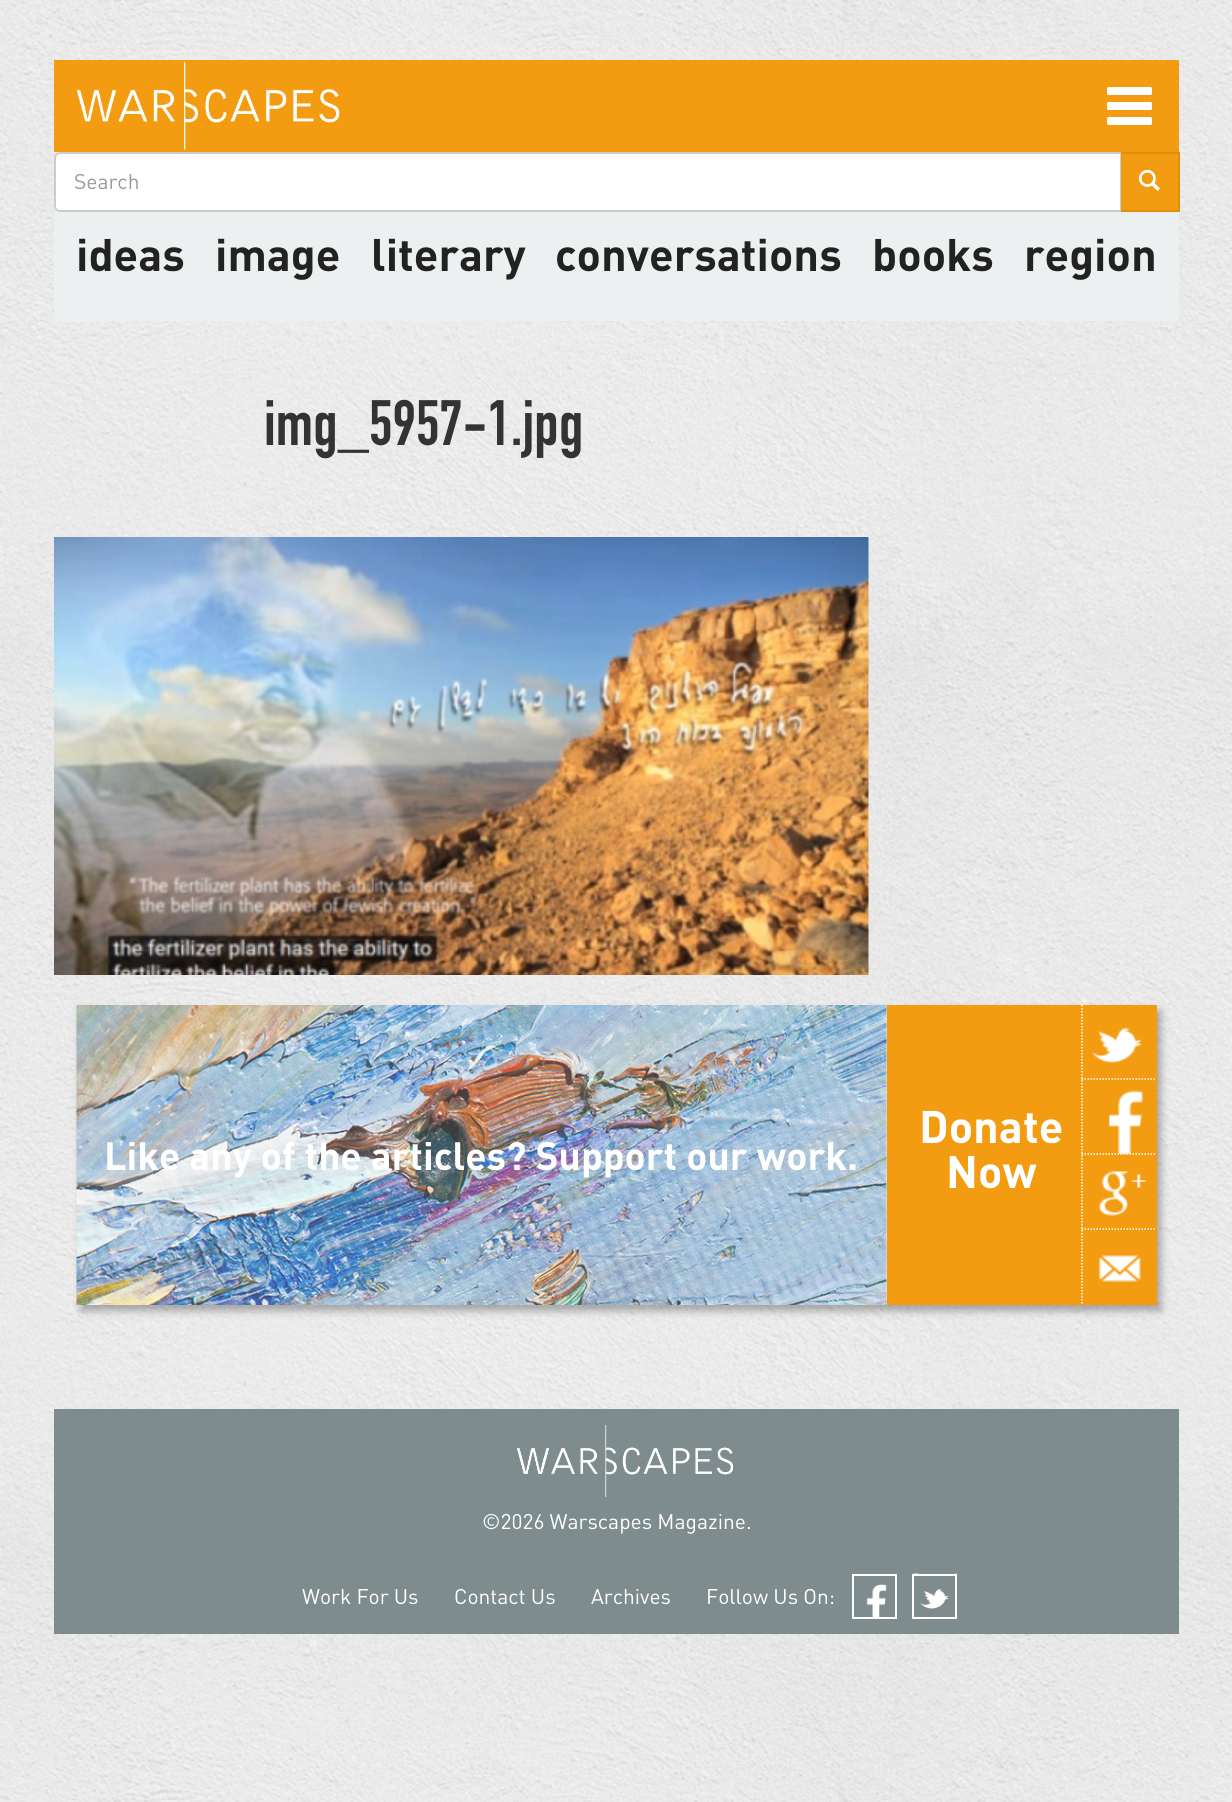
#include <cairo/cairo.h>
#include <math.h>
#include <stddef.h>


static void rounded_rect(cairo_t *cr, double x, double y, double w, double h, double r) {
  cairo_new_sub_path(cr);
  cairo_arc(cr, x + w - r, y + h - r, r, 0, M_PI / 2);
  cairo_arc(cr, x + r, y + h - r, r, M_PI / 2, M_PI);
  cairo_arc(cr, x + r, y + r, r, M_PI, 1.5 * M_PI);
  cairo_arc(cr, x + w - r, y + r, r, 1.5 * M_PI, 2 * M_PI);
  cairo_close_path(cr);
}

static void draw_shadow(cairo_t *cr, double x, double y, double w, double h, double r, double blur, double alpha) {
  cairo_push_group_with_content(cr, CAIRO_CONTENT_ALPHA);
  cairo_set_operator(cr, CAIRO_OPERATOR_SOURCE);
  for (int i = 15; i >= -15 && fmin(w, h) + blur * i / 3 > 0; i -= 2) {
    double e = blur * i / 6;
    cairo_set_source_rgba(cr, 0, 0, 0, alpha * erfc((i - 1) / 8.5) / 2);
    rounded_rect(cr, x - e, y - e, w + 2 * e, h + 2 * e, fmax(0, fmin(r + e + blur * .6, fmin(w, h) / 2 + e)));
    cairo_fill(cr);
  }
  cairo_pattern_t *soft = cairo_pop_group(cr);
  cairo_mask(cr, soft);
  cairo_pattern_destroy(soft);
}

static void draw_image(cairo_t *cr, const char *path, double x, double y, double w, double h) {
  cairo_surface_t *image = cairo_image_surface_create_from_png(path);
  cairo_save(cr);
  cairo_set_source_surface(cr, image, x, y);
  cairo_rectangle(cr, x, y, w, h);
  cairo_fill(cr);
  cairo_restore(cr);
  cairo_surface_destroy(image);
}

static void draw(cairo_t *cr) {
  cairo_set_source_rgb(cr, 1, 1, 1);
  cairo_paint(cr);
  draw_image(cr, "images/1.png", 0, 0, 1232, 1802);
  cairo_set_source_rgb(cr, 243 / 255.0, 156 / 255.0, 18 / 255.0);
  cairo_rectangle(cr, 54, 60, 1125, 92);
  cairo_fill(cr);
  draw_image(cr, "images/2.png", 77, 62, 263, 88);
  cairo_set_source_rgb(cr, 1, 1, 1);
  rounded_rect(cr, 1107, 87, 45, 8, 1.5);
  cairo_fill(cr);
  rounded_rect(cr, 1107, 102, 45, 8, 1.5);
  cairo_fill(cr);
  rounded_rect(cr, 1107, 117, 45, 8, 1.5);
  cairo_fill(cr);
  cairo_new_path(cr);
  cairo_move_to(cr, 60, 152);
  cairo_line_to(cr, 1122, 152);
  cairo_line_to(cr, 1122, 212);
  cairo_line_to(cr, 60, 212);
  cairo_curve_to(cr, 56.5, 212, 54, 209.5, 54, 206);
  cairo_line_to(cr, 54, 158);
  cairo_curve_to(cr, 54, 154.5, 56.5, 152, 60, 152);
  cairo_close_path(cr);
  cairo_fill(cr);
  cairo_set_source_rgb(cr, 236 / 255.0, 236 / 255.0, 236 / 255.0);
  cairo_new_path(cr);
  cairo_move_to(cr, 60, 154);
  cairo_line_to(cr, 1120, 154);
  cairo_line_to(cr, 1120, 210);
  cairo_line_to(cr, 1121, 210);
  cairo_line_to(cr, 1121, 153);
  cairo_line_to(cr, 61, 153);
  cairo_curve_to(cr, 58, 153, 56, 156, 56, 159);
  cairo_curve_to(cr, 56, 157, 58, 154, 60, 154);
  cairo_close_path(cr);
  cairo_fill(cr);
  cairo_new_path(cr);
  cairo_move_to(cr, 60, 153);
  cairo_line_to(cr, 1121, 153);
  cairo_line_to(cr, 1121, 211);
  cairo_line_to(cr, 60, 211);
  cairo_curve_to(cr, 57, 211, 55, 209, 55, 206);
  cairo_line_to(cr, 55, 158);
  cairo_curve_to(cr, 55, 155, 57, 153, 60, 153);
  cairo_close_path(cr);
  cairo_set_source_rgb(cr, 204 / 255.0, 204 / 255.0, 204 / 255.0);
  cairo_stroke(cr);
  cairo_set_source_rgb(cr, 243 / 255.0, 156 / 255.0, 18 / 255.0);
  cairo_rectangle(cr, 1121, 154, 57, 56);
  cairo_fill(cr);
  cairo_set_source_rgb(cr, 224 / 255.0, 142 / 255.0, 11 / 255.0);
  cairo_rectangle(cr, 1121, 152, 58, 2);
  cairo_fill(cr);
  cairo_rectangle(cr, 1178, 152, 2, 60);
  cairo_fill(cr);
  cairo_rectangle(cr, 1121, 210, 58, 2);
  cairo_fill(cr);
  draw_image(cr, "images/3.png", 1138, 169, 22, 22);
  cairo_set_source_rgb(cr, 236 / 255.0, 240 / 255.0, 241 / 255.0);
  cairo_rectangle(cr, 54, 212, 1125, 109);
  cairo_fill(cr);
  draw_image(cr, "images/4.png", 54, 537, 815, 438);
  cairo_save(cr);
  cairo_set_fill_rule(cr, CAIRO_FILL_RULE_EVEN_ODD);
  cairo_new_path(cr);
  cairo_move_to(cr, 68, 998);
  cairo_line_to(cr, 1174, 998);
  cairo_line_to(cr, 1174, 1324);
  cairo_line_to(cr, 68, 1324);
  cairo_close_path(cr);
  cairo_move_to(cr, 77, 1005);
  cairo_line_to(cr, 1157, 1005);
  cairo_line_to(cr, 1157, 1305);
  cairo_line_to(cr, 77, 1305);
  cairo_close_path(cr);
  cairo_clip(cr);
  cairo_set_source_rgb(cr, 0, 0, 0);
  draw_shadow(cr, 81, 1011, 1080, 300, 0, 4, 0.3);
  cairo_restore(cr);
  draw_image(cr, "images/5.png", 76, 1005, 811, 300);
  cairo_set_source_rgb(cr, 243 / 255.0, 156 / 255.0, 18 / 255.0);
  cairo_rectangle(cr, 887, 1005, 270, 300);
  cairo_fill(cr);
  draw_image(cr, "images/6.png", 1091, 1027, 51, 36);
  cairo_new_path(cr);
  cairo_move_to(cr, 1081.5, 1079);
  cairo_line_to(cr, 1156.5, 1079);
  cairo_set_source_rgb(cr, 1, 1, 1);
  cairo_set_line_width(cr, 1.5);
  cairo_set_dash(cr, (double[]){1.5, 1.5}, 2, 0);
  cairo_stroke(cr);
  cairo_new_path(cr);
  cairo_move_to(cr, 1082, 1005);
  cairo_line_to(cr, 1082, 1080);
  cairo_stroke(cr);
  draw_image(cr, "images/7.png", 1108, 1090, 36, 65);
  cairo_new_path(cr);
  cairo_move_to(cr, 1081.5, 1154);
  cairo_line_to(cr, 1156.5, 1154);
  cairo_stroke(cr);
  cairo_new_path(cr);
  cairo_move_to(cr, 1082, 1080);
  cairo_line_to(cr, 1082, 1155);
  cairo_stroke(cr);
  draw_image(cr, "images/8.png", 1098, 1171, 49, 45);
  cairo_new_path(cr);
  cairo_move_to(cr, 1081.5, 1229);
  cairo_line_to(cr, 1156.5, 1229);
  cairo_stroke(cr);
  cairo_new_path(cr);
  cairo_move_to(cr, 1082, 1155);
  cairo_line_to(cr, 1082, 1230);
  cairo_stroke(cr);
  draw_image(cr, "images/9.png", 1098, 1255, 43, 27);
  cairo_new_path(cr);
  cairo_move_to(cr, 1082, 1230);
  cairo_line_to(cr, 1082, 1305);
  cairo_stroke(cr);
  cairo_set_source_rgb(cr, 127 / 255.0, 140 / 255.0, 141 / 255.0);
  cairo_rectangle(cr, 54, 1409, 1125, 225);
  cairo_fill(cr);
  draw_image(cr, "images/10.png", 517, 1425, 217, 72);
  draw_image(cr, "images/11.png", 866, 1584, 21, 33);
  cairo_rectangle(cr, 853, 1575, 43, 43);
  cairo_set_source_rgb(cr, 1, 1, 1);
  cairo_set_line_width(cr, 2);
  cairo_set_dash(cr, NULL, 0, 0);
  cairo_stroke(cr);
  draw_image(cr, "images/12.png", 913, 1573, 44, 36);
  cairo_rectangle(cr, 913, 1575, 43, 43);
  cairo_stroke(cr);
  cairo_select_font_face(cr, "DIN", CAIRO_FONT_SLANT_NORMAL, CAIRO_FONT_WEIGHT_NORMAL);
  cairo_set_font_size(cr, 21);
  cairo_set_source_rgb(cr, 153 / 255.0, 153 / 255.0, 153 / 255.0);
  cairo_move_to(cr, 74, 189);
  cairo_show_text(cr, "Search");
  cairo_select_font_face(cr, "DIN", CAIRO_FONT_SLANT_NORMAL, CAIRO_FONT_WEIGHT_BOLD);
  cairo_set_font_size(cr, 45);
  cairo_set_source_rgb(cr, 34 / 255.0, 34 / 255.0, 34 / 255.0);
  cairo_move_to(cr, 76, 271);
  cairo_show_text(cr, "ideas");
  cairo_move_to(cr, 215, 271);
  cairo_show_text(cr, "image");
  cairo_move_to(cr, 371, 271);
  cairo_show_text(cr, "literary");
  cairo_move_to(cr, 555, 271);
  cairo_show_text(cr, "conversations");
  cairo_move_to(cr, 872, 271);
  cairo_show_text(cr, "books");
  cairo_move_to(cr, 1024, 271);
  cairo_show_text(cr, "region");
  cairo_select_font_face(cr, "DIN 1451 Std", CAIRO_FONT_SLANT_NORMAL, CAIRO_FONT_WEIGHT_NORMAL);
  cairo_set_font_size(cr, 63);
  cairo_set_source_rgb(cr, 51 / 255.0, 51 / 255.0, 51 / 255.0);
  cairo_move_to(cr, 264, 445);
  cairo_show_text(cr, "img_5957-1.jpg");
  cairo_select_font_face(cr, "DIN", CAIRO_FONT_SLANT_NORMAL, CAIRO_FONT_WEIGHT_BOLD);
  cairo_set_font_size(cr, 39);
  cairo_set_source_rgb(cr, 1, 1, 1);
  cairo_move_to(cr, 104, 1170);
  cairo_show_text(cr, "Like any of the articles? Support our work.");
  cairo_set_font_size(cr, 45);
  cairo_move_to(cr, 919, 1143);
  cairo_show_text(cr, "Donate");
  cairo_move_to(cr, 946, 1188);
  cairo_show_text(cr, "Now");
  cairo_select_font_face(cr, "DIN", CAIRO_FONT_SLANT_NORMAL, CAIRO_FONT_WEIGHT_NORMAL);
  cairo_set_font_size(cr, 21);
  cairo_move_to(cr, 482, 1529);
  cairo_show_text(cr, "©2026 Warscapes Magazine.");
  cairo_move_to(cr, 302, 1604);
  cairo_show_text(cr, "Work For Us");
  cairo_move_to(cr, 454, 1604);
  cairo_show_text(cr, "Contact Us");
  cairo_move_to(cr, 591, 1604);
  cairo_show_text(cr, "Archives");
  cairo_move_to(cr, 706, 1604);
  cairo_show_text(cr, "Follow Us On:");
}

int main(void) {
  cairo_surface_t *surface = cairo_image_surface_create(CAIRO_FORMAT_RGB24, 1232, 1802);
  cairo_t *cr = cairo_create(surface);
  cairo_font_options_t *options = cairo_font_options_create();
  cairo_font_options_set_hint_metrics(options, CAIRO_HINT_METRICS_OFF);
  cairo_font_options_set_hint_style(options, CAIRO_HINT_STYLE_NONE);
  cairo_set_font_options(cr, options);
  cairo_set_miter_limit(cr, 4);
  draw(cr);
  cairo_surface_write_to_png(surface, "out.png");
  cairo_font_options_destroy(options);
  cairo_destroy(cr);
  cairo_surface_destroy(surface);
  return 0;
}
